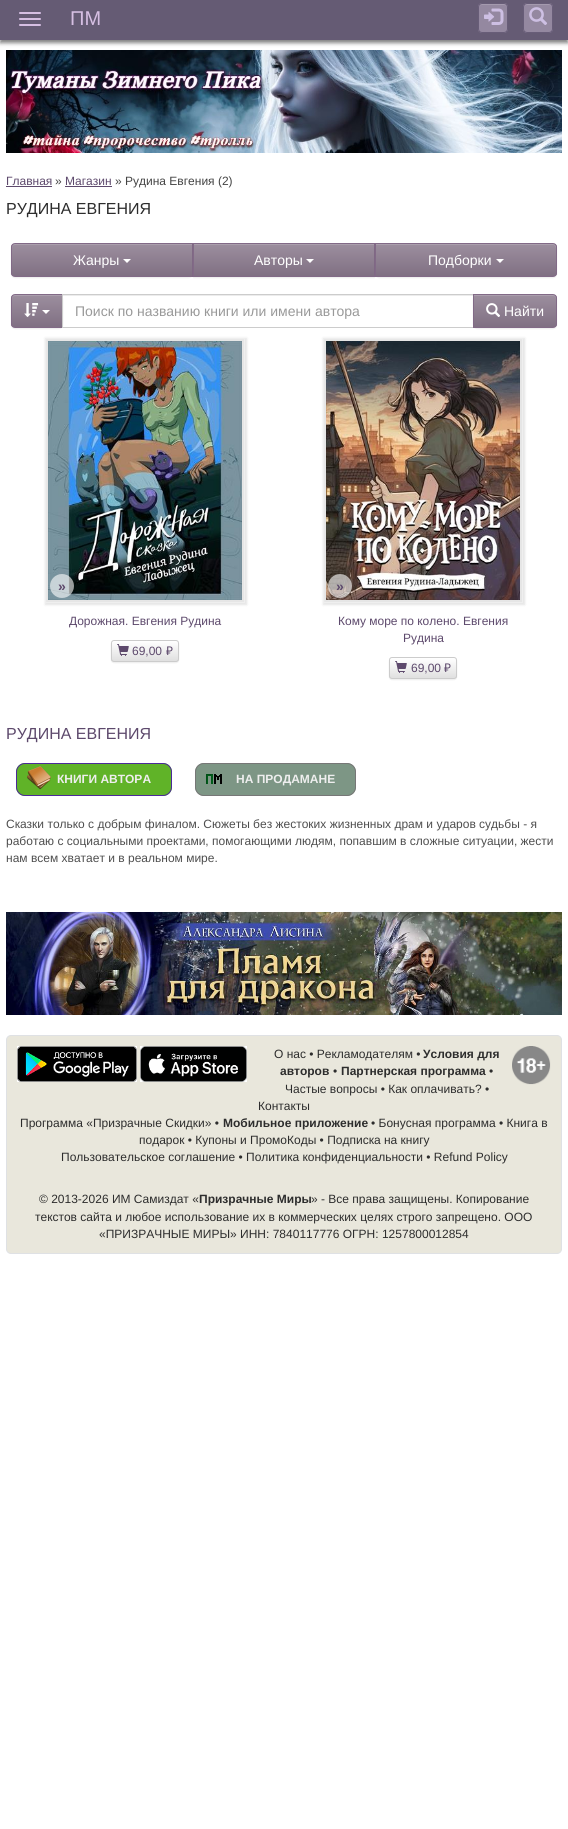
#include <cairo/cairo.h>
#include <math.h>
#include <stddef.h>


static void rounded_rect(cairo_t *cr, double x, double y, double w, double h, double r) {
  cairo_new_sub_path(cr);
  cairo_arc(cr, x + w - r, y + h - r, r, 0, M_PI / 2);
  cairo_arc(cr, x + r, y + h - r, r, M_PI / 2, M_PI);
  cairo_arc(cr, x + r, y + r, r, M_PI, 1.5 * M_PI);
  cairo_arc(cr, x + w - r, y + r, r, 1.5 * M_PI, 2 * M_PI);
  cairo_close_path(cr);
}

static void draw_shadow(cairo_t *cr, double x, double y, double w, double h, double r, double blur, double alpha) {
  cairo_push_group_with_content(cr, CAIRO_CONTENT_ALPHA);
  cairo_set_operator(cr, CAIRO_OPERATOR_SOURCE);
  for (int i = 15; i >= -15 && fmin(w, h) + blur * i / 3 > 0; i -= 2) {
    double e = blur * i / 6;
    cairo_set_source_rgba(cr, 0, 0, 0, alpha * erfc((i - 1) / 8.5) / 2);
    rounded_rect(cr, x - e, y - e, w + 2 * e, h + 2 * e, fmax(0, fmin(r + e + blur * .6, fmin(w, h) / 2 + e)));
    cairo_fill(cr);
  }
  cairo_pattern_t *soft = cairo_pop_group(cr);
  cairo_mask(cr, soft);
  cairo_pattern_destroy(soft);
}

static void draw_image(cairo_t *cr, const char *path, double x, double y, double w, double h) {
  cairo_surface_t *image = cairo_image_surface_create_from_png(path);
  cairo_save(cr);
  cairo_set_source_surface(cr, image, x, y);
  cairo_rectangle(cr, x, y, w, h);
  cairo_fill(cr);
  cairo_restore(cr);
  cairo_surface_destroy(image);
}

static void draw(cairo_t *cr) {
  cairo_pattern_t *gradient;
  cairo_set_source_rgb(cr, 1, 1, 1);
  cairo_paint(cr);
  cairo_set_source_rgb(cr, 0, 0, 0);
  draw_shadow(cr, 0, 3, 568, 40, 0, 2, 0.5);
  cairo_set_source_rgb(cr, 101 / 255.0, 91 / 255.0, 116 / 255.0);
  cairo_rectangle(cr, 0, 0, 568, 40);
  cairo_fill(cr);
  cairo_set_source_rgb(cr, 214 / 255.0, 191 / 255.0, 227 / 255.0);
  rounded_rect(cr, 19, 12, 22, 2, 1);
  cairo_fill(cr);
  rounded_rect(cr, 19, 18, 22, 2, 1);
  cairo_fill(cr);
  rounded_rect(cr, 19, 24, 22, 2, 1);
  cairo_fill(cr);
  cairo_set_source_rgb(cr, 148 / 255.0, 136 / 255.0, 160 / 255.0);
  rounded_rect(cr, 478, 3, 30, 30, 4);
  cairo_fill(cr);
  cairo_set_source_rgb(cr, 164 / 255.0, 154 / 255.0, 174 / 255.0);
  cairo_new_path(cr);
  cairo_move_to(cr, 482, 5);
  cairo_line_to(cr, 504, 5);
  cairo_curve_to(cr, 506, 5, 507, 6, 507, 8);
  cairo_curve_to(cr, 507, 3.5, 504, 4, 500.5, 4);
  cairo_line_to(cr, 485.5, 4);
  cairo_curve_to(cr, 482, 4, 479, 3.5, 479, 8);
  cairo_curve_to(cr, 479, 6, 480, 5, 482, 5);
  cairo_close_path(cr);
  cairo_fill(cr);
  rounded_rect(cr, 478.5, 3.5, 29, 29, 3.5);
  cairo_set_source_rgb(cr, 104 / 255.0, 93 / 255.0, 120 / 255.0);
  cairo_set_line_width(cr, 1);
  cairo_stroke(cr);
  draw_image(cr, "images/1.png", 484, 8, 20, 17);
  cairo_set_source_rgb(cr, 148 / 255.0, 136 / 255.0, 160 / 255.0);
  rounded_rect(cr, 523, 3, 30, 30, 4);
  cairo_fill(cr);
  cairo_set_source_rgb(cr, 164 / 255.0, 154 / 255.0, 174 / 255.0);
  cairo_new_path(cr);
  cairo_move_to(cr, 527, 5);
  cairo_line_to(cr, 549, 5);
  cairo_curve_to(cr, 551, 5, 552, 6, 552, 8);
  cairo_curve_to(cr, 552, 3.5, 549, 4, 545.5, 4);
  cairo_line_to(cr, 530.5, 4);
  cairo_curve_to(cr, 527, 4, 524, 3.5, 524, 8);
  cairo_curve_to(cr, 524, 6, 525, 5, 527, 5);
  cairo_close_path(cr);
  cairo_fill(cr);
  rounded_rect(cr, 523.5, 3.5, 29, 29, 3.5);
  cairo_set_source_rgb(cr, 104 / 255.0, 93 / 255.0, 120 / 255.0);
  cairo_stroke(cr);
  draw_image(cr, "images/2.png", 529, 7, 18, 18);
  draw_image(cr, "images/3.png", 6, 50, 556, 103);
  cairo_set_source_rgb(cr, 93 / 255.0, 73 / 255.0, 108 / 255.0);
  cairo_rectangle(cr, 6, 186, 46, 1);
  cairo_fill(cr);
  cairo_rectangle(cr, 65, 186, 47, 1);
  cairo_fill(cr);
  cairo_set_source_rgb(cr, 0, 0, 0);
  draw_shadow(cr, 11, 244, 182, 34, 4, 0.5, 0.07);
  cairo_save(cr);
  cairo_new_path(cr);
  cairo_move_to(cr, 15, 243);
  cairo_line_to(cr, 193, 243);
  cairo_line_to(cr, 193, 277);
  cairo_line_to(cr, 15, 277);
  cairo_curve_to(cr, 13, 277, 11, 275, 11, 273);
  cairo_line_to(cr, 11, 247);
  cairo_curve_to(cr, 11, 245, 13, 243, 15, 243);
  cairo_close_path(cr);
  cairo_clip(cr);
  gradient = cairo_pattern_create_linear(102, 244, 102, 276);
  cairo_pattern_add_color_stop_rgba(gradient, 0, 156 / 255.0, 142 / 255.0, 158 / 255.0, 1);
  cairo_pattern_add_color_stop_rgba(gradient, 1, 128 / 255.0, 112 / 255.0, 131 / 255.0, 1);
  cairo_set_source(cr, gradient);
  cairo_pattern_destroy(gradient);
  cairo_rectangle(cr, 11, 244, 181, 32);
  cairo_fill(cr);
  cairo_restore(cr);
  cairo_set_source_rgb(cr, 171 / 255.0, 159 / 255.0, 173 / 255.0);
  cairo_new_path(cr);
  cairo_move_to(cr, 15, 245);
  cairo_line_to(cr, 192, 245);
  cairo_line_to(cr, 192, 244);
  cairo_line_to(cr, 14, 244);
  cairo_curve_to(cr, 12, 245, 12, 246, 12, 248);
  cairo_curve_to(cr, 12, 246, 13, 245, 15, 245);
  cairo_close_path(cr);
  cairo_fill(cr);
  cairo_new_path(cr);
  cairo_move_to(cr, 15, 243.5);
  cairo_line_to(cr, 192.5, 243.5);
  cairo_line_to(cr, 192.5, 276.5);
  cairo_line_to(cr, 15, 276.5);
  cairo_curve_to(cr, 13, 276.5, 11.5, 275, 11.5, 273);
  cairo_line_to(cr, 11.5, 247);
  cairo_curve_to(cr, 11.5, 245, 13, 243.5, 15, 243.5);
  cairo_close_path(cr);
  cairo_set_source_rgb(cr, 130 / 255.0, 106 / 255.0, 135 / 255.0);
  cairo_stroke(cr);
  cairo_set_source_rgb(cr, 1, 1, 1);
  cairo_new_path(cr);
  cairo_move_to(cr, 123, 259);
  cairo_line_to(cr, 131, 259);
  cairo_line_to(cr, 127, 263);
  cairo_close_path(cr);
  cairo_fill(cr);
  cairo_set_source_rgb(cr, 0, 0, 0);
  draw_shadow(cr, 193, 244, 182, 34, 0, 0.5, 0.07);
  gradient = cairo_pattern_create_linear(284, 244, 284, 276);
  cairo_pattern_add_color_stop_rgba(gradient, 0, 156 / 255.0, 142 / 255.0, 158 / 255.0, 1);
  cairo_pattern_add_color_stop_rgba(gradient, 1, 128 / 255.0, 112 / 255.0, 131 / 255.0, 1);
  cairo_set_source(cr, gradient);
  cairo_pattern_destroy(gradient);
  cairo_rectangle(cr, 194, 245, 180, 31);
  cairo_fill(cr);
  cairo_set_source_rgb(cr, 171 / 255.0, 159 / 255.0, 173 / 255.0);
  cairo_rectangle(cr, 194, 244, 180, 1);
  cairo_fill(cr);
  cairo_rectangle(cr, 193.5, 243.5, 181, 33);
  cairo_set_source_rgb(cr, 130 / 255.0, 106 / 255.0, 135 / 255.0);
  cairo_stroke(cr);
  cairo_set_source_rgb(cr, 1, 1, 1);
  cairo_new_path(cr);
  cairo_move_to(cr, 306, 259);
  cairo_line_to(cr, 314, 259);
  cairo_line_to(cr, 310, 263);
  cairo_close_path(cr);
  cairo_fill(cr);
  cairo_set_source_rgb(cr, 0, 0, 0);
  draw_shadow(cr, 375, 244, 182, 34, 4, 0.5, 0.07);
  cairo_save(cr);
  cairo_new_path(cr);
  cairo_move_to(cr, 375, 243);
  cairo_line_to(cr, 553, 243);
  cairo_curve_to(cr, 555, 243, 557, 245, 557, 247);
  cairo_line_to(cr, 557, 273);
  cairo_curve_to(cr, 557, 275, 555, 277, 553, 277);
  cairo_line_to(cr, 375, 277);
  cairo_close_path(cr);
  cairo_clip(cr);
  gradient = cairo_pattern_create_linear(466, 244, 466, 276);
  cairo_pattern_add_color_stop_rgba(gradient, 0, 156 / 255.0, 142 / 255.0, 158 / 255.0, 1);
  cairo_pattern_add_color_stop_rgba(gradient, 1, 128 / 255.0, 112 / 255.0, 131 / 255.0, 1);
  cairo_set_source(cr, gradient);
  cairo_pattern_destroy(gradient);
  cairo_rectangle(cr, 376, 244, 181, 32);
  cairo_fill(cr);
  cairo_restore(cr);
  cairo_set_source_rgb(cr, 171 / 255.0, 159 / 255.0, 173 / 255.0);
  cairo_new_path(cr);
  cairo_move_to(cr, 376, 245);
  cairo_line_to(cr, 554, 245);
  cairo_line_to(cr, 555, 246);
  cairo_line_to(cr, 556, 248);
  cairo_curve_to(cr, 556, 246, 556, 245, 554, 244);
  cairo_line_to(cr, 376, 244);
  cairo_close_path(cr);
  cairo_fill(cr);
  cairo_new_path(cr);
  cairo_move_to(cr, 375.5, 243.5);
  cairo_line_to(cr, 553, 243.5);
  cairo_curve_to(cr, 555, 243.5, 556.5, 245, 556.5, 247);
  cairo_line_to(cr, 556.5, 273);
  cairo_curve_to(cr, 556.5, 275, 555, 276.5, 553, 276.5);
  cairo_line_to(cr, 375.5, 276.5);
  cairo_close_path(cr);
  cairo_set_source_rgb(cr, 130 / 255.0, 106 / 255.0, 135 / 255.0);
  cairo_stroke(cr);
  cairo_set_source_rgb(cr, 1, 1, 1);
  cairo_new_path(cr);
  cairo_move_to(cr, 496, 259);
  cairo_line_to(cr, 504, 259);
  cairo_line_to(cr, 500, 263);
  cairo_close_path(cr);
  cairo_fill(cr);
  cairo_set_source_rgb(cr, 0, 0, 0);
  draw_shadow(cr, 11, 295, 52, 34, 4, 0.5, 0.07);
  cairo_save(cr);
  cairo_new_path(cr);
  cairo_move_to(cr, 15, 294);
  cairo_line_to(cr, 63, 294);
  cairo_line_to(cr, 63, 328);
  cairo_line_to(cr, 15, 328);
  cairo_curve_to(cr, 13, 328, 11, 326, 11, 324);
  cairo_line_to(cr, 11, 298);
  cairo_curve_to(cr, 11, 296, 13, 294, 15, 294);
  cairo_close_path(cr);
  cairo_clip(cr);
  gradient = cairo_pattern_create_linear(37, 295, 37, 327);
  cairo_pattern_add_color_stop_rgba(gradient, 0, 156 / 255.0, 142 / 255.0, 158 / 255.0, 1);
  cairo_pattern_add_color_stop_rgba(gradient, 1, 128 / 255.0, 112 / 255.0, 131 / 255.0, 1);
  cairo_set_source(cr, gradient);
  cairo_pattern_destroy(gradient);
  cairo_rectangle(cr, 11, 295, 51, 32);
  cairo_fill(cr);
  cairo_restore(cr);
  cairo_set_source_rgb(cr, 171 / 255.0, 159 / 255.0, 173 / 255.0);
  cairo_new_path(cr);
  cairo_move_to(cr, 15, 296);
  cairo_line_to(cr, 62, 296);
  cairo_line_to(cr, 62, 295);
  cairo_line_to(cr, 15, 295);
  cairo_curve_to(cr, 13, 295, 12, 296, 12, 298);
  cairo_line_to(cr, 12, 299);
  cairo_curve_to(cr, 12, 297, 13, 296, 15, 296);
  cairo_close_path(cr);
  cairo_fill(cr);
  cairo_new_path(cr);
  cairo_move_to(cr, 15, 294.5);
  cairo_line_to(cr, 62.5, 294.5);
  cairo_line_to(cr, 62.5, 327.5);
  cairo_line_to(cr, 15, 327.5);
  cairo_curve_to(cr, 13, 327.5, 11.5, 326, 11.5, 324);
  cairo_line_to(cr, 11.5, 298);
  cairo_curve_to(cr, 11.5, 296, 13, 294.5, 15, 294.5);
  cairo_close_path(cr);
  cairo_set_source_rgb(cr, 130 / 255.0, 106 / 255.0, 135 / 255.0);
  cairo_stroke(cr);
  draw_image(cr, "images/4.png", 24, 303, 15, 14);
  cairo_set_source_rgb(cr, 1, 1, 1);
  cairo_new_path(cr);
  cairo_move_to(cr, 42, 310);
  cairo_line_to(cr, 50, 310);
  cairo_line_to(cr, 46, 314);
  cairo_close_path(cr);
  cairo_fill(cr);
  cairo_set_source_rgb(cr, 236 / 255.0, 236 / 255.0, 236 / 255.0);
  cairo_rectangle(cr, 63, 295, 410, 1);
  cairo_fill(cr);
  cairo_rectangle(cr, 62.5, 294.5, 411, 33);
  cairo_set_source_rgb(cr, 204 / 255.0, 204 / 255.0, 204 / 255.0);
  cairo_stroke(cr);
  cairo_set_source_rgb(cr, 0, 0, 0);
  draw_shadow(cr, 473, 295, 84, 34, 4, 0.5, 0.07);
  cairo_save(cr);
  cairo_new_path(cr);
  cairo_move_to(cr, 473, 294);
  cairo_line_to(cr, 553, 294);
  cairo_curve_to(cr, 555, 294, 557, 296, 557, 298);
  cairo_line_to(cr, 557, 324);
  cairo_curve_to(cr, 557, 326, 555, 328, 553, 328);
  cairo_line_to(cr, 473, 328);
  cairo_close_path(cr);
  cairo_clip(cr);
  gradient = cairo_pattern_create_linear(515, 295, 515, 327);
  cairo_pattern_add_color_stop_rgba(gradient, 0, 156 / 255.0, 142 / 255.0, 158 / 255.0, 1);
  cairo_pattern_add_color_stop_rgba(gradient, 1, 128 / 255.0, 112 / 255.0, 131 / 255.0, 1);
  cairo_set_source(cr, gradient);
  cairo_pattern_destroy(gradient);
  cairo_rectangle(cr, 474, 295, 83, 32);
  cairo_fill(cr);
  cairo_restore(cr);
  cairo_set_source_rgb(cr, 171 / 255.0, 159 / 255.0, 173 / 255.0);
  cairo_new_path(cr);
  cairo_move_to(cr, 474, 296);
  cairo_line_to(cr, 553, 296);
  cairo_curve_to(cr, 555, 296, 556, 297, 556, 299);
  cairo_line_to(cr, 556, 298);
  cairo_curve_to(cr, 556, 296, 555, 295, 553, 295);
  cairo_line_to(cr, 474, 295);
  cairo_close_path(cr);
  cairo_fill(cr);
  cairo_new_path(cr);
  cairo_move_to(cr, 473.5, 294.5);
  cairo_line_to(cr, 553, 294.5);
  cairo_curve_to(cr, 555, 294.5, 556.5, 296, 556.5, 298);
  cairo_line_to(cr, 556.5, 324);
  cairo_curve_to(cr, 556.5, 326, 555, 327.5, 553, 327.5);
  cairo_line_to(cr, 473.5, 327.5);
  cairo_close_path(cr);
  cairo_set_source_rgb(cr, 130 / 255.0, 106 / 255.0, 135 / 255.0);
  cairo_stroke(cr);
  draw_image(cr, "images/5.png", 486, 303, 14, 14);
  cairo_set_source_rgb(cr, 0, 0, 0);
  draw_shadow(cr, 45, 338, 202, 267, 0, 1, 0.1);
  draw_image(cr, "images/6.png", 48, 341, 194, 259);
  cairo_rectangle(cr, 45.5, 338.5, 199, 264);
  cairo_set_source_rgb(cr, 239 / 255.0, 239 / 255.0, 239 / 255.0);
  cairo_stroke(cr);
  cairo_set_source_rgba(cr, 254 / 255.0, 254 / 255.0, 254 / 255.0, 0.6);
  cairo_arc(cr, 62, 586, 12, 0, 2 * M_PI);
  cairo_fill(cr);
  cairo_set_source_rgb(cr, 0, 0, 0);
  draw_shadow(cr, 111, 641, 68, 22, 3, 0.5, 0.07);
  cairo_save(cr);
  rounded_rect(cr, 111, 640, 68, 22, 3);
  cairo_clip(cr);
  gradient = cairo_pattern_create_linear(145, 641, 145, 661);
  cairo_pattern_add_color_stop_rgba(gradient, 0, 1, 1, 1, 1);
  cairo_pattern_add_color_stop_rgba(gradient, 1, 224 / 255.0, 224 / 255.0, 224 / 255.0, 1);
  cairo_set_source(cr, gradient);
  cairo_pattern_destroy(gradient);
  cairo_rectangle(cr, 111, 641, 68, 20);
  cairo_fill(cr);
  cairo_restore(cr);
  rounded_rect(cr, 111.5, 640.5, 67, 21, 2.5);
  cairo_set_source_rgb(cr, 204 / 255.0, 204 / 255.0, 204 / 255.0);
  cairo_stroke(cr);
  draw_image(cr, "images/7.png", 117, 644, 12, 12);
  cairo_set_source_rgb(cr, 0, 0, 0);
  draw_shadow(cr, 323, 338, 202, 267, 0, 1, 0.1);
  draw_image(cr, "images/8.png", 326, 341, 194, 259);
  cairo_rectangle(cr, 323.5, 338.5, 199, 264);
  cairo_set_source_rgb(cr, 239 / 255.0, 239 / 255.0, 239 / 255.0);
  cairo_stroke(cr);
  cairo_set_source_rgba(cr, 254 / 255.0, 254 / 255.0, 254 / 255.0, 0.6);
  cairo_arc(cr, 340, 586, 12, 0, 2 * M_PI);
  cairo_fill(cr);
  cairo_set_source_rgb(cr, 0, 0, 0);
  draw_shadow(cr, 389, 658, 68, 22, 3, 0.5, 0.07);
  cairo_save(cr);
  rounded_rect(cr, 389, 657, 68, 22, 3);
  cairo_clip(cr);
  gradient = cairo_pattern_create_linear(423, 658, 423, 678);
  cairo_pattern_add_color_stop_rgba(gradient, 0, 1, 1, 1, 1);
  cairo_pattern_add_color_stop_rgba(gradient, 1, 224 / 255.0, 224 / 255.0, 224 / 255.0, 1);
  cairo_set_source(cr, gradient);
  cairo_pattern_destroy(gradient);
  cairo_rectangle(cr, 389, 658, 68, 20);
  cairo_fill(cr);
  cairo_restore(cr);
  rounded_rect(cr, 389.5, 657.5, 67, 21, 2.5);
  cairo_set_source_rgb(cr, 204 / 255.0, 204 / 255.0, 204 / 255.0);
  cairo_stroke(cr);
  draw_image(cr, "images/7.png", 395, 661, 12, 12);
  cairo_set_source_rgb(cr, 96 / 255.0, 179 / 255.0, 40 / 255.0);
  rounded_rect(cr, 16, 763, 156, 33, 9);
  cairo_fill(cr);
  draw_image(cr, "images/9.png", 27, 766, 24, 24);
  rounded_rect(cr, 16.5, 763.5, 155, 32, 8.5);
  cairo_set_source_rgb(cr, 75 / 255.0, 42 / 255.0, 153 / 255.0);
  cairo_stroke(cr);
  cairo_set_source_rgb(cr, 125 / 255.0, 150 / 255.0, 133 / 255.0);
  rounded_rect(cr, 195, 763, 161, 33, 9);
  cairo_fill(cr);
  draw_image(cr, "images/10.png", 206, 774, 16, 10);
  rounded_rect(cr, 195.5, 763.5, 160, 32, 8.5);
  cairo_set_source_rgb(cr, 119 / 255.0, 119 / 255.0, 119 / 255.0);
  cairo_stroke(cr);
  draw_image(cr, "images/11.png", 6, 912, 556, 103);
  cairo_set_source_rgb(cr, 233 / 255.0, 231 / 255.0, 220 / 255.0);
  rounded_rect(cr, 6.5, 1035.5, 555, 218, 4.5);
  cairo_fill_preserve(cr);
  cairo_set_source_rgb(cr, 223 / 255.0, 225 / 255.0, 228 / 255.0);
  cairo_stroke(cr);
  cairo_set_source_rgb(cr, 1, 1, 1);
  cairo_rectangle(cr, 17, 1046, 120, 36);
  cairo_fill(cr);
  draw_image(cr, "images/12.png", 17, 1046, 120, 36);
  draw_image(cr, "images/13.png", 17, 1046, 120, 36);
  cairo_rectangle(cr, 140, 1046, 107, 36);
  cairo_fill(cr);
  draw_image(cr, "images/14.png", 140, 1046, 107, 36);
  draw_image(cr, "images/15.png", 140, 1046, 107, 36);
  draw_image(cr, "images/16.png", 512, 1046, 39, 39);
  cairo_select_font_face(cr, "Liberation Sans", CAIRO_FONT_SLANT_NORMAL, CAIRO_FONT_WEIGHT_NORMAL);
  cairo_set_font_size(cr, 20);
  cairo_set_source_rgb(cr, 214 / 255.0, 191 / 255.0, 227 / 255.0);
  cairo_move_to(cr, 70, 25);
  cairo_show_text(cr, "ПМ");
  cairo_set_font_size(cr, 12);
  cairo_set_source_rgb(cr, 93 / 255.0, 73 / 255.0, 108 / 255.0);
  cairo_move_to(cr, 6, 185);
  cairo_show_text(cr, "Главная");
  cairo_set_source_rgb(cr, 68 / 255.0, 68 / 255.0, 68 / 255.0);
  cairo_move_to(cr, 55, 185);
  cairo_show_text(cr, "»");
  cairo_set_source_rgb(cr, 93 / 255.0, 73 / 255.0, 108 / 255.0);
  cairo_move_to(cr, 65, 185);
  cairo_show_text(cr, "Магазин");
  cairo_set_source_rgb(cr, 68 / 255.0, 68 / 255.0, 68 / 255.0);
  cairo_move_to(cr, 115, 185);
  cairo_show_text(cr, "» Рудина Евгения (2)");
  cairo_set_font_size(cr, 16);
  cairo_set_source_rgb(cr, 45 / 255.0, 45 / 255.0, 45 / 255.0);
  cairo_move_to(cr, 6, 214);
  cairo_show_text(cr, "РУДИНА ЕВГЕНИЯ");
  cairo_set_font_size(cr, 14);
  cairo_set_source_rgb(cr, 1, 1, 1);
  cairo_move_to(cr, 73, 265);
  cairo_show_text(cr, "Жанры");
  cairo_move_to(cr, 254, 265);
  cairo_show_text(cr, "Авторы");
  cairo_move_to(cr, 428, 265);
  cairo_show_text(cr, "Подборки");
  cairo_set_source_rgb(cr, 153 / 255.0, 153 / 255.0, 153 / 255.0);
  cairo_move_to(cr, 75, 316);
  cairo_show_text(cr, "Поиск по названию книги или имени автора");
  cairo_set_source_rgb(cr, 1, 1, 1);
  cairo_move_to(cr, 504, 316);
  cairo_show_text(cr, "Найти");
  cairo_select_font_face(cr, "Liberation Sans", CAIRO_FONT_SLANT_NORMAL, CAIRO_FONT_WEIGHT_BOLD);
  cairo_set_source_rgb(cr, 93 / 255.0, 73 / 255.0, 108 / 255.0);
  cairo_move_to(cr, 58, 591);
  cairo_show_text(cr, "»");
  cairo_select_font_face(cr, "Liberation Sans", CAIRO_FONT_SLANT_NORMAL, CAIRO_FONT_WEIGHT_NORMAL);
  cairo_set_font_size(cr, 12);
  cairo_move_to(cr, 69, 625);
  cairo_show_text(cr, "Дорожная. Евгения Рудина");
  cairo_move_to(cr, 132, 655);
  cairo_show_text(cr, "69,00");
  cairo_select_font_face(cr, "Noto Sans", CAIRO_FONT_SLANT_NORMAL, CAIRO_FONT_WEIGHT_NORMAL);
  cairo_move_to(cr, 166, 655);
  cairo_show_text(cr, "₽");
  cairo_select_font_face(cr, "Liberation Sans", CAIRO_FONT_SLANT_NORMAL, CAIRO_FONT_WEIGHT_BOLD);
  cairo_set_font_size(cr, 14);
  cairo_move_to(cr, 336, 591);
  cairo_show_text(cr, "»");
  cairo_select_font_face(cr, "Liberation Sans", CAIRO_FONT_SLANT_NORMAL, CAIRO_FONT_WEIGHT_NORMAL);
  cairo_set_font_size(cr, 12);
  cairo_move_to(cr, 338, 625);
  cairo_show_text(cr, "Кому море по колено. Евгения");
  cairo_move_to(cr, 403, 642);
  cairo_show_text(cr, "Рудина");
  cairo_move_to(cr, 411, 672);
  cairo_show_text(cr, "69,00");
  cairo_select_font_face(cr, "Noto Sans", CAIRO_FONT_SLANT_NORMAL, CAIRO_FONT_WEIGHT_NORMAL);
  cairo_move_to(cr, 444, 672);
  cairo_show_text(cr, "₽");
  cairo_select_font_face(cr, "Liberation Sans", CAIRO_FONT_SLANT_NORMAL, CAIRO_FONT_WEIGHT_NORMAL);
  cairo_set_font_size(cr, 16);
  cairo_move_to(cr, 6, 739);
  cairo_show_text(cr, "РУДИНА ЕВГЕНИЯ");
  cairo_select_font_face(cr, "Liberation Sans", CAIRO_FONT_SLANT_NORMAL, CAIRO_FONT_WEIGHT_BOLD);
  cairo_set_font_size(cr, 12);
  cairo_set_source_rgb(cr, 238 / 255.0, 238 / 255.0, 238 / 255.0);
  cairo_move_to(cr, 57, 783);
  cairo_show_text(cr, "КНИГИ АВТОРА");
  cairo_move_to(cr, 236, 783);
  cairo_show_text(cr, "НА ПРОДАМАНЕ");
  cairo_select_font_face(cr, "Liberation Sans", CAIRO_FONT_SLANT_NORMAL, CAIRO_FONT_WEIGHT_NORMAL);
  cairo_set_source_rgb(cr, 78 / 255.0, 78 / 255.0, 78 / 255.0);
  cairo_move_to(cr, 6, 828);
  cairo_show_text(cr, "Сказки только с добрым финалом. Сюжеты без жестоких жизненных драм и ударов судьбы - я");
  cairo_move_to(cr, 6, 845);
  cairo_show_text(cr, "работаю с социальными проектами, помогающими людям, попавшим в сложные ситуации, жести");
  cairo_move_to(cr, 6, 862);
  cairo_show_text(cr, "нам всем хватает и в реальном мире.");
  cairo_set_source_rgb(cr, 45 / 255.0, 45 / 255.0, 45 / 255.0);
  cairo_move_to(cr, 274, 1058);
  cairo_show_text(cr, "О нас • Рекламодателям •");
  cairo_select_font_face(cr, "Liberation Sans", CAIRO_FONT_SLANT_NORMAL, CAIRO_FONT_WEIGHT_BOLD);
  cairo_move_to(cr, 423, 1058);
  cairo_show_text(cr, "Условия для");
  cairo_move_to(cr, 280, 1075);
  cairo_show_text(cr, "авторов");
  cairo_select_font_face(cr, "Liberation Sans", CAIRO_FONT_SLANT_NORMAL, CAIRO_FONT_WEIGHT_NORMAL);
  cairo_move_to(cr, 333, 1075);
  cairo_show_text(cr, "•");
  cairo_select_font_face(cr, "Liberation Sans", CAIRO_FONT_SLANT_NORMAL, CAIRO_FONT_WEIGHT_BOLD);
  cairo_move_to(cr, 341, 1075);
  cairo_show_text(cr, "Партнерская программа");
  cairo_select_font_face(cr, "Liberation Sans", CAIRO_FONT_SLANT_NORMAL, CAIRO_FONT_WEIGHT_NORMAL);
  cairo_move_to(cr, 489, 1075);
  cairo_show_text(cr, "•");
  cairo_move_to(cr, 285, 1093);
  cairo_show_text(cr, "Частые вопросы • Как оплачивать? •");
  cairo_move_to(cr, 258, 1110);
  cairo_show_text(cr, "Контакты");
  cairo_move_to(cr, 20, 1127);
  cairo_show_text(cr, "Программа «Призрачные Скидки» •");
  cairo_select_font_face(cr, "Liberation Sans", CAIRO_FONT_SLANT_NORMAL, CAIRO_FONT_WEIGHT_BOLD);
  cairo_move_to(cr, 223, 1127);
  cairo_show_text(cr, "Мобильное приложение");
  cairo_select_font_face(cr, "Liberation Sans", CAIRO_FONT_SLANT_NORMAL, CAIRO_FONT_WEIGHT_NORMAL);
  cairo_move_to(cr, 371, 1127);
  cairo_show_text(cr, "• Бонусная программа • Книга в");
  cairo_move_to(cr, 139, 1144);
  cairo_show_text(cr, "подарок • Купоны и ПромоКоды • Подписка на книгу");
  cairo_move_to(cr, 61, 1161);
  cairo_show_text(cr, "Пользовательское соглашение • Политика конфиденциальности • Refund Policy");
  cairo_move_to(cr, 39, 1203);
  cairo_show_text(cr, "© 2013-2026 ИМ Самиздат «");
  cairo_select_font_face(cr, "Liberation Sans", CAIRO_FONT_SLANT_NORMAL, CAIRO_FONT_WEIGHT_BOLD);
  cairo_move_to(cr, 199, 1203);
  cairo_show_text(cr, "Призрачные Миры");
  cairo_select_font_face(cr, "Liberation Sans", CAIRO_FONT_SLANT_NORMAL, CAIRO_FONT_WEIGHT_NORMAL);
  cairo_move_to(cr, 311, 1203);
  cairo_show_text(cr, "» - Все права защищены. Копирование");
  cairo_move_to(cr, 35, 1221);
  cairo_show_text(cr, "текстов сайта и любое использование их в коммерческих целях строго запрещено. ООО");
  cairo_move_to(cr, 99, 1238);
  cairo_show_text(cr, "«ПРИЗРАЧНЫЕ МИРЫ» ИНН: 7840117776 ОГРН: 1257800012854");
}

int main(void) {
  cairo_surface_t *surface = cairo_image_surface_create(CAIRO_FORMAT_RGB24, 568, 1829);
  cairo_t *cr = cairo_create(surface);
  cairo_font_options_t *options = cairo_font_options_create();
  cairo_font_options_set_hint_metrics(options, CAIRO_HINT_METRICS_OFF);
  cairo_font_options_set_hint_style(options, CAIRO_HINT_STYLE_NONE);
  cairo_set_font_options(cr, options);
  cairo_set_miter_limit(cr, 4);
  draw(cr);
  cairo_surface_write_to_png(surface, "out.png");
  cairo_font_options_destroy(options);
  cairo_destroy(cr);
  cairo_surface_destroy(surface);
  return 0;
}
